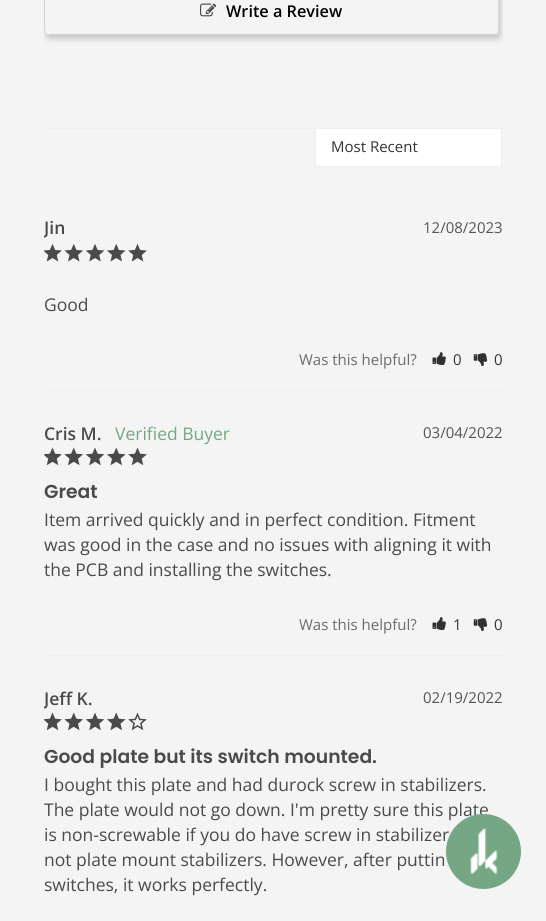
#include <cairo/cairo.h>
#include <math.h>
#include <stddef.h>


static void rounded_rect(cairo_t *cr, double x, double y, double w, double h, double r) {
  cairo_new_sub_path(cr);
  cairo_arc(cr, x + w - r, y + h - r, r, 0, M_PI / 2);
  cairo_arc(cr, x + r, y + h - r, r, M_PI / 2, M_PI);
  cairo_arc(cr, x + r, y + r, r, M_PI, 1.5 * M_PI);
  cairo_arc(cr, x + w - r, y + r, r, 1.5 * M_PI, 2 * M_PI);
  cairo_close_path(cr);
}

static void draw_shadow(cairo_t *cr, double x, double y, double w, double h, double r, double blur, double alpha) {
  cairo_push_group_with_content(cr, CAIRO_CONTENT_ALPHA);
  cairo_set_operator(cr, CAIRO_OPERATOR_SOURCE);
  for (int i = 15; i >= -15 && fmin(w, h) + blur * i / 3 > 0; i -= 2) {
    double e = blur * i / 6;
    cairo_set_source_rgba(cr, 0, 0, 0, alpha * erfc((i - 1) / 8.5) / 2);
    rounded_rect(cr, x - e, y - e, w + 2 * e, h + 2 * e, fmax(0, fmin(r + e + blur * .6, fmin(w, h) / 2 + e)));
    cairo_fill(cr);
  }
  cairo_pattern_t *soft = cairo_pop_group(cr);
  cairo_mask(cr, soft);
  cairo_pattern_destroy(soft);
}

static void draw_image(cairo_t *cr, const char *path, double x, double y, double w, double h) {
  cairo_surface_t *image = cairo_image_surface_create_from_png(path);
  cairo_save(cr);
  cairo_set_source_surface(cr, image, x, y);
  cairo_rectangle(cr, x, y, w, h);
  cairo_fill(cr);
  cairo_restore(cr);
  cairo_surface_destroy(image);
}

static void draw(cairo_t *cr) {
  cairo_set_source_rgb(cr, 244 / 255.0, 244 / 255.0, 244 / 255.0);
  cairo_paint(cr);
  cairo_save(cr);
  cairo_rectangle(cr, 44, 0, 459, 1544);
  cairo_clip(cr);
  cairo_set_fill_rule(cr, CAIRO_FILL_RULE_EVEN_ODD);
  cairo_new_path(cr);
  cairo_move_to(cr, 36, 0);
  cairo_line_to(cr, 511, 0);
  cairo_line_to(cr, 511, 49);
  cairo_line_to(cr, 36, 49);
  cairo_close_path(cr);
  cairo_move_to(cr, 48, -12);
  cairo_line_to(cr, 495, -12);
  cairo_curve_to(cr, 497, -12, 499, -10, 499, -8);
  cairo_line_to(cr, 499, 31);
  cairo_curve_to(cr, 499, 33, 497, 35, 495, 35);
  cairo_line_to(cr, 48, 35);
  cairo_curve_to(cr, 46, 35, 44, 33, 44, 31);
  cairo_line_to(cr, 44, -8);
  cairo_curve_to(cr, 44, -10, 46, -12, 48, -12);
  cairo_close_path(cr);
  cairo_clip(cr);
  cairo_set_source_rgb(cr, 136 / 255.0, 136 / 255.0, 136 / 255.0);
  draw_shadow(cr, 46, -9, 455, 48, 4, 3, 0.42);
  cairo_restore(cr);
  rounded_rect(cr, 44.5, -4.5, 454, 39, 3.5);
  cairo_set_source_rgb(cr, 204 / 255.0, 214 / 255.0, 224 / 255.0);
  cairo_set_line_width(cr, 1);
  cairo_stroke(cr);
  draw_image(cr, "images/1.png", 200, 3, 17, 14);
  cairo_set_source_rgb(cr, 238 / 255.0, 238 / 255.0, 238 / 255.0);
  cairo_rectangle(cr, 501, 128, 1, 40);
  cairo_fill(cr);
  cairo_rectangle(cr, 315, 166, 188, 1);
  cairo_fill(cr);
  cairo_rectangle(cr, 315, 128, 1, 40);
  cairo_fill(cr);
  cairo_rectangle(cr, 44, 128, 459, 1);
  cairo_fill(cr);
  cairo_set_source_rgb(cr, 1, 1, 1);
  cairo_rectangle(cr, 316, 129, 185, 37);
  cairo_fill(cr);
  draw_image(cr, "images/2.png", 44, 244, 18, 18);
  draw_image(cr, "images/3.png", 64, 244, 19, 18);
  draw_image(cr, "images/4.png", 85, 244, 20, 18);
  draw_image(cr, "images/5.png", 107, 244, 19, 18);
  draw_image(cr, "images/6.png", 128, 244, 19, 18);
  draw_image(cr, "images/7.png", 432, 352, 14, 13);
  draw_image(cr, "images/8.png", 473, 353, 15, 13);
  cairo_set_source_rgb(cr, 238 / 255.0, 238 / 255.0, 238 / 255.0);
  cairo_rectangle(cr, 44, 390, 459, 1);
  cairo_fill(cr);
  draw_image(cr, "images/9.png", 44, 447, 18, 19);
  draw_image(cr, "images/10.png", 64, 447, 19, 19);
  draw_image(cr, "images/11.png", 85, 447, 20, 19);
  draw_image(cr, "images/12.png", 107, 447, 19, 19);
  draw_image(cr, "images/13.png", 128, 447, 19, 19);
  draw_image(cr, "images/7.png", 432, 617, 14, 13);
  draw_image(cr, "images/8.png", 473, 618, 15, 13);
  cairo_rectangle(cr, 44, 655, 459, 1);
  cairo_fill(cr);
  draw_image(cr, "images/9.png", 44, 712, 18, 19);
  draw_image(cr, "images/10.png", 64, 712, 19, 19);
  draw_image(cr, "images/11.png", 85, 712, 20, 19);
  draw_image(cr, "images/12.png", 107, 712, 19, 19);
  draw_image(cr, "images/14.png", 128, 712, 19, 19);
  cairo_select_font_face(cr, "Open Sans SemiBold", CAIRO_FONT_SLANT_NORMAL, CAIRO_FONT_WEIGHT_NORMAL);
  cairo_set_font_size(cr, 16.25);
  cairo_set_source_rgb(cr, 0, 0, 0);
  cairo_move_to(cr, 226, 17);
  cairo_show_text(cr, "Write a Review");
  cairo_select_font_face(cr, "Open Sans", CAIRO_FONT_SLANT_NORMAL, CAIRO_FONT_WEIGHT_NORMAL);
  cairo_set_font_size(cr, 15);
  cairo_set_source_rgb(cr, 51 / 255.0, 51 / 255.0, 51 / 255.0);
  cairo_move_to(cr, 331, 152);
  cairo_show_text(cr, "Most Recent");
  cairo_save(cr);
  cairo_rectangle(cr, 44, 0, 459, 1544);
  cairo_clip(cr);
  cairo_select_font_face(cr, "Open Sans SemiBold", CAIRO_FONT_SLANT_NORMAL, CAIRO_FONT_WEIGHT_NORMAL);
  cairo_set_font_size(cr, 17.5);
  cairo_set_source_rgb(cr, 74 / 255.0, 74 / 255.0, 74 / 255.0);
  cairo_move_to(cr, 44, 234);
  cairo_show_text(cr, "Jin");
  cairo_restore(cr);
  cairo_set_source_rgb(cr, 85 / 255.0, 85 / 255.0, 85 / 255.0);
  cairo_move_to(cr, 423, 233);
  cairo_show_text(cr, "12/08/2023");
  cairo_set_font_size(cr, 17.5);
  cairo_set_source_rgb(cr, 74 / 255.0, 74 / 255.0, 74 / 255.0);
  cairo_move_to(cr, 44, 311);
  cairo_show_text(cr, "Good");
  cairo_set_font_size(cr, 15);
  cairo_set_source_rgb(cr, 108 / 255.0, 108 / 255.0, 108 / 255.0);
  cairo_move_to(cr, 299, 365);
  cairo_show_text(cr, "Was this helpful?");
  cairo_set_source_rgb(cr, 51 / 255.0, 51 / 255.0, 51 / 255.0);
  cairo_move_to(cr, 453, 365);
  cairo_show_text(cr, "0");
  cairo_move_to(cr, 494, 365);
  cairo_show_text(cr, "0");
  cairo_select_font_face(cr, "Open Sans SemiBold", CAIRO_FONT_SLANT_NORMAL, CAIRO_FONT_WEIGHT_NORMAL);
  cairo_set_font_size(cr, 17.5);
  cairo_set_source_rgb(cr, 74 / 255.0, 74 / 255.0, 74 / 255.0);
  cairo_move_to(cr, 44, 440);
  cairo_show_text(cr, "Cris M.");
  cairo_select_font_face(cr, "Open Sans", CAIRO_FONT_SLANT_NORMAL, CAIRO_FONT_WEIGHT_NORMAL);
  cairo_set_source_rgb(cr, 117 / 255.0, 167 / 255.0, 132 / 255.0);
  cairo_move_to(cr, 115, 440);
  cairo_show_text(cr, "Verified Buyer");
  cairo_set_font_size(cr, 15);
  cairo_set_source_rgb(cr, 85 / 255.0, 85 / 255.0, 85 / 255.0);
  cairo_move_to(cr, 423, 438);
  cairo_show_text(cr, "03/04/2022");
  cairo_select_font_face(cr, "Poppins SemiBold", CAIRO_FONT_SLANT_NORMAL, CAIRO_FONT_WEIGHT_NORMAL);
  cairo_set_font_size(cr, 18.75);
  cairo_set_source_rgb(cr, 74 / 255.0, 74 / 255.0, 74 / 255.0);
  cairo_move_to(cr, 44, 498);
  cairo_show_text(cr, "Great");
  cairo_select_font_face(cr, "Open Sans", CAIRO_FONT_SLANT_NORMAL, CAIRO_FONT_WEIGHT_NORMAL);
  cairo_set_font_size(cr, 17.5);
  cairo_move_to(cr, 44, 526);
  cairo_show_text(cr, "Item arrived quickly and in perfect condition. Fitment");
  cairo_move_to(cr, 44, 551);
  cairo_show_text(cr, "was good in the case and no issues with aligning it with");
  cairo_move_to(cr, 44, 576);
  cairo_show_text(cr, "the PCB and installing the switches.");
  cairo_set_font_size(cr, 15);
  cairo_set_source_rgb(cr, 108 / 255.0, 108 / 255.0, 108 / 255.0);
  cairo_move_to(cr, 299, 630);
  cairo_show_text(cr, "Was this helpful?");
  cairo_set_source_rgb(cr, 51 / 255.0, 51 / 255.0, 51 / 255.0);
  cairo_move_to(cr, 453, 630);
  cairo_show_text(cr, "1");
  cairo_move_to(cr, 494, 630);
  cairo_show_text(cr, "0");
  cairo_save(cr);
  cairo_rectangle(cr, 44, 0, 459, 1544);
  cairo_clip(cr);
  cairo_select_font_face(cr, "Open Sans SemiBold", CAIRO_FONT_SLANT_NORMAL, CAIRO_FONT_WEIGHT_NORMAL);
  cairo_set_font_size(cr, 17.5);
  cairo_set_source_rgb(cr, 74 / 255.0, 74 / 255.0, 74 / 255.0);
  cairo_move_to(cr, 44, 705);
  cairo_show_text(cr, "Jeff K.");
  cairo_restore(cr);
  cairo_set_source_rgb(cr, 85 / 255.0, 85 / 255.0, 85 / 255.0);
  cairo_move_to(cr, 423, 703);
  cairo_show_text(cr, "02/19/2022");
  cairo_select_font_face(cr, "Poppins SemiBold", CAIRO_FONT_SLANT_NORMAL, CAIRO_FONT_WEIGHT_NORMAL);
  cairo_set_font_size(cr, 18.75);
  cairo_set_source_rgb(cr, 74 / 255.0, 74 / 255.0, 74 / 255.0);
  cairo_move_to(cr, 44, 763);
  cairo_show_text(cr, "Good plate but its switch mounted.");
  cairo_select_font_face(cr, "Open Sans", CAIRO_FONT_SLANT_NORMAL, CAIRO_FONT_WEIGHT_NORMAL);
  cairo_set_font_size(cr, 17.5);
  cairo_move_to(cr, 44, 791);
  cairo_show_text(cr, "I bought this plate and had durock screw in stabilizers.");
  cairo_move_to(cr, 44, 816);
  cairo_show_text(cr, "The plate would not go down. I'm pretty sure this plate");
  cairo_move_to(cr, 44, 841);
  cairo_show_text(cr, "is non-screwable if you do have screw in stabilizer");
  cairo_move_to(cr, 44, 866);
  cairo_show_text(cr, "not plate mount stabilizers. However, after puttin");
  cairo_move_to(cr, 44, 891);
  cairo_show_text(cr, "switches, it works perfectly.");
  cairo_set_source_rgb(cr, 117 / 255.0, 167 / 255.0, 132 / 255.0);
  cairo_new_path(cr);
  cairo_arc(cr, 483.5, 851.5, 37.5, 0, 2 * M_PI);
  cairo_fill(cr);
  draw_image(cr, "images/15.png", 470, 828, 28, 47);
}

int main(void) {
  cairo_surface_t *surface = cairo_image_surface_create(CAIRO_FORMAT_RGB24, 546, 921);
  cairo_t *cr = cairo_create(surface);
  cairo_font_options_t *options = cairo_font_options_create();
  cairo_font_options_set_hint_metrics(options, CAIRO_HINT_METRICS_OFF);
  cairo_font_options_set_hint_style(options, CAIRO_HINT_STYLE_NONE);
  cairo_set_font_options(cr, options);
  cairo_set_miter_limit(cr, 4);
  draw(cr);
  cairo_surface_write_to_png(surface, "out.png");
  cairo_font_options_destroy(options);
  cairo_destroy(cr);
  cairo_surface_destroy(surface);
  return 0;
}
